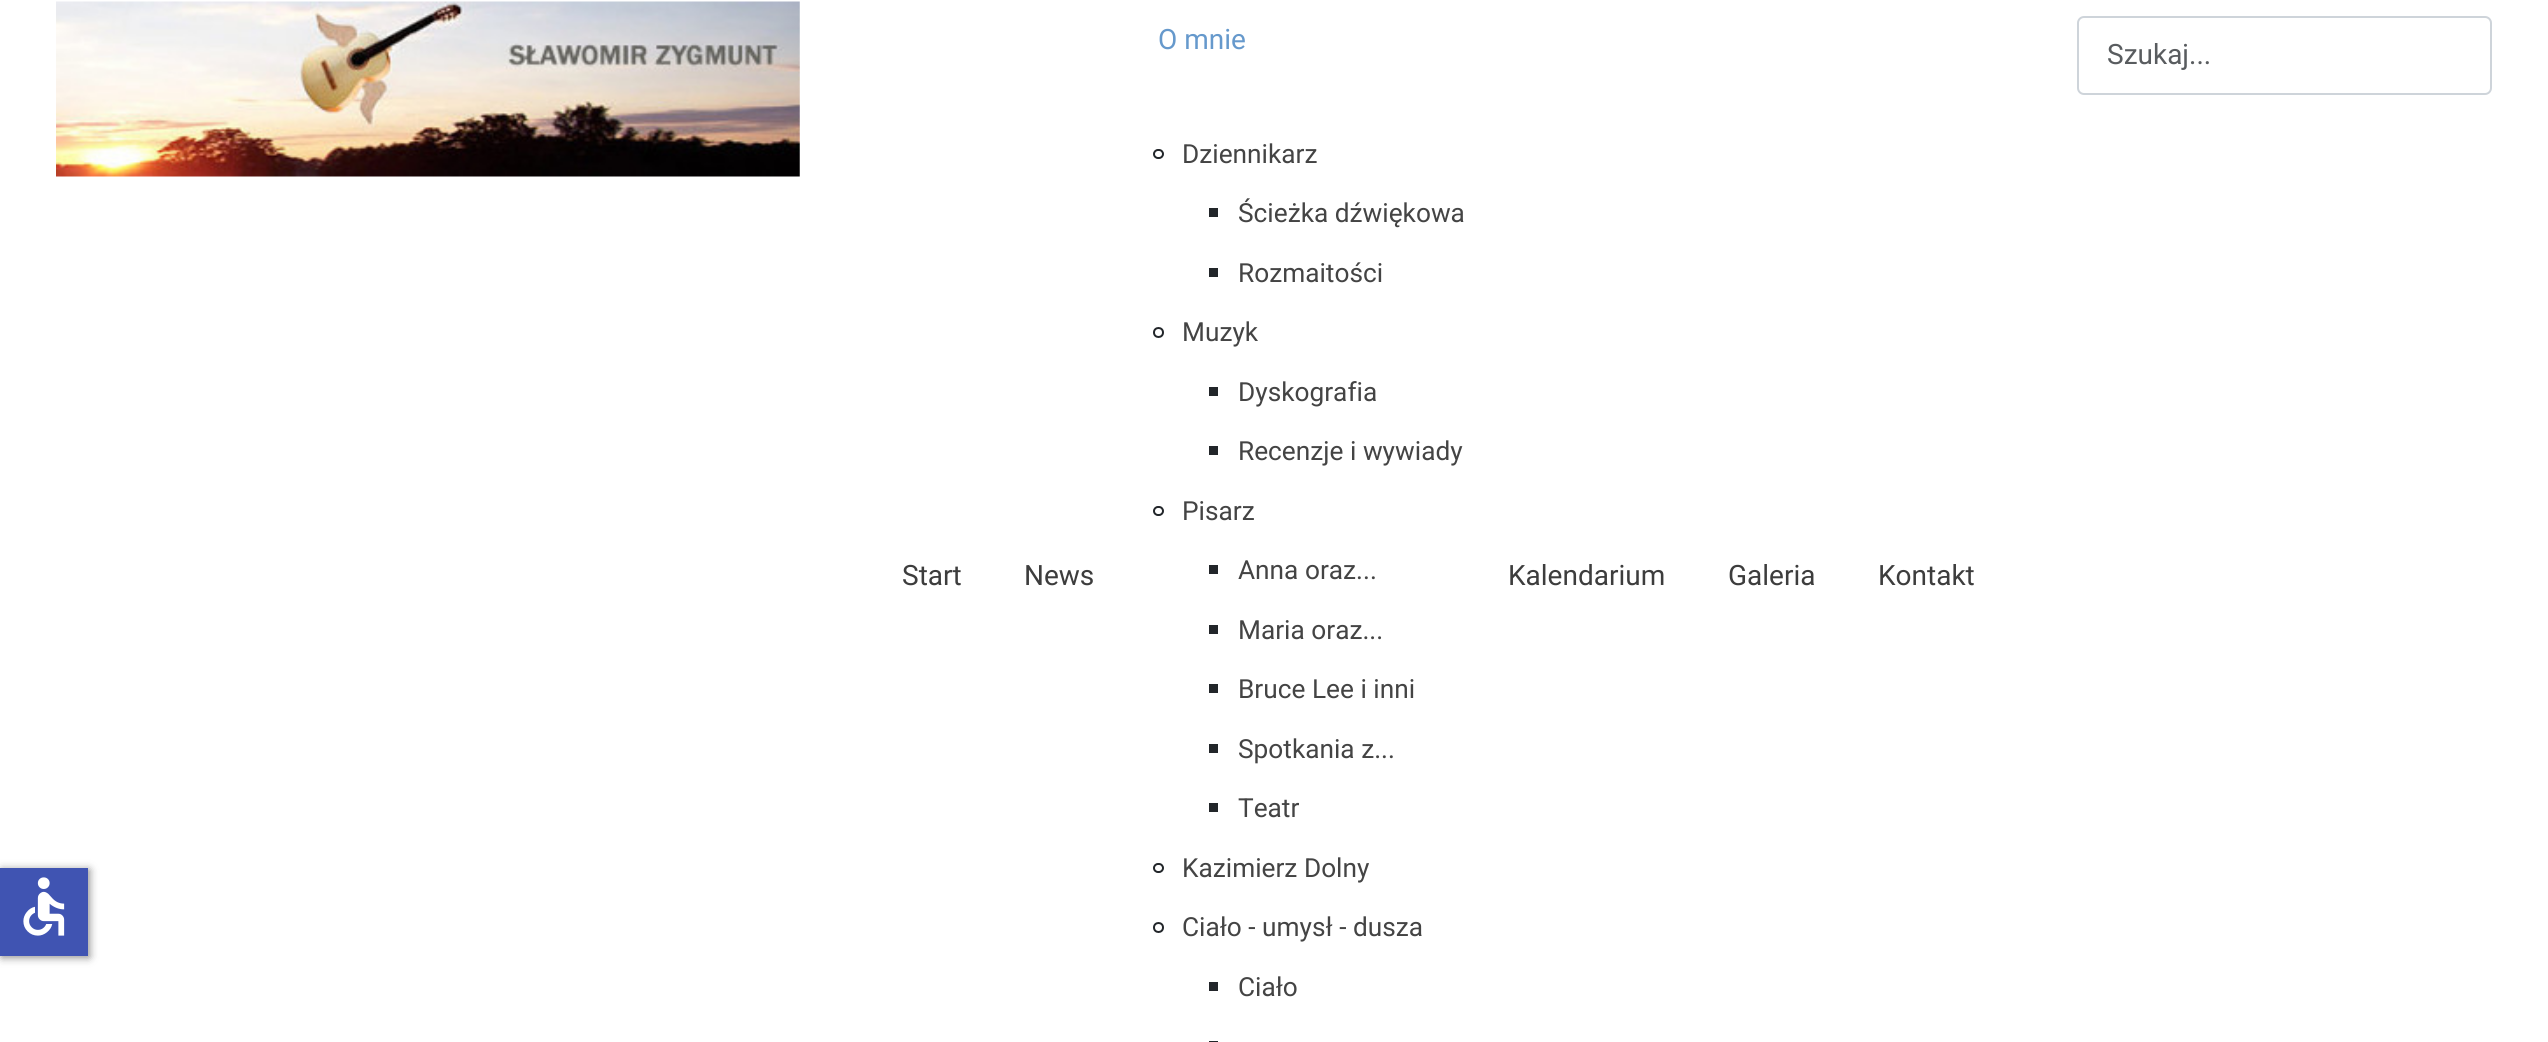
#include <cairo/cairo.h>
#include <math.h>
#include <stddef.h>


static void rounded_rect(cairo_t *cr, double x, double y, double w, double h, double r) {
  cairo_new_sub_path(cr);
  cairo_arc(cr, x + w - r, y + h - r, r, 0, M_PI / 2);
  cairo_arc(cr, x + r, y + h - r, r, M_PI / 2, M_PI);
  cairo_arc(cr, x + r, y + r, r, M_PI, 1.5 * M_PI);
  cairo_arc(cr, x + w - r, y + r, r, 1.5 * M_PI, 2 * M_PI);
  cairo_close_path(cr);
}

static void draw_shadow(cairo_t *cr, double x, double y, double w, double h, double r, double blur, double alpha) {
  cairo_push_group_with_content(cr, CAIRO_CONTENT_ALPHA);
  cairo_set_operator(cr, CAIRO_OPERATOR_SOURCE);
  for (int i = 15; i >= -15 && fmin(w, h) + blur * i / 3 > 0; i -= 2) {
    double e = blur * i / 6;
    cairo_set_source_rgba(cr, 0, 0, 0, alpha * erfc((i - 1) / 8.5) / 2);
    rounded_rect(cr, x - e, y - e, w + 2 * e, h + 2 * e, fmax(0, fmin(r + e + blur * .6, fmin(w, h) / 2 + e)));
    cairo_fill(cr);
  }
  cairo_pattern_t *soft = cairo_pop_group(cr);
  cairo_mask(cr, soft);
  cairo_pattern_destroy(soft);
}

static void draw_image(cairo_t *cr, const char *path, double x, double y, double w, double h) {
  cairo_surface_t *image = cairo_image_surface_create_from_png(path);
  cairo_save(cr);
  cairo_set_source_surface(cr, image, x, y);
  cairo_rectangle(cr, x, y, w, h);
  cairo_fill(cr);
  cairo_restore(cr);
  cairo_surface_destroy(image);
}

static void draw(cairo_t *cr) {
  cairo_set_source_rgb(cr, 1, 1, 1);
  cairo_paint(cr);
  cairo_set_source_rgb(cr, 0, 0, 0);
  draw_shadow(cr, 2, 870, 87, 87, 0, 4.5, 0.5);
  cairo_set_source_rgb(cr, 64 / 255.0, 84 / 255.0, 178 / 255.0);
  cairo_rectangle(cr, 0, 868, 88, 88);
  cairo_fill(cr);
  draw_image(cr, "images/1.png", 23, 877, 42, 59);
  draw_image(cr, "images/2.png", 56, 1, 744, 176);
  rounded_rect(cr, 1154, 150, 9, 8, 4);
  cairo_set_source_rgb(cr, 34 / 255.0, 38 / 255.0, 42 / 255.0);
  cairo_stroke(cr);
  cairo_rectangle(cr, 1209, 208, 9, 9);
  cairo_fill(cr);
  cairo_rectangle(cr, 1209, 268, 9, 9);
  cairo_fill(cr);
  cairo_arc(cr, 1158.5, 332.5, 4.5, 0, 2 * M_PI);
  cairo_stroke(cr);
  cairo_rectangle(cr, 1209, 387, 9, 9);
  cairo_fill(cr);
  cairo_rectangle(cr, 1209, 446, 9, 9);
  cairo_fill(cr);
  rounded_rect(cr, 1154, 507, 9, 8, 4);
  cairo_stroke(cr);
  cairo_rectangle(cr, 1209, 565, 9, 9);
  cairo_fill(cr);
  cairo_rectangle(cr, 1209, 625, 9, 9);
  cairo_fill(cr);
  cairo_rectangle(cr, 1209, 684, 9, 9);
  cairo_fill(cr);
  cairo_rectangle(cr, 1209, 744, 9, 9);
  cairo_fill(cr);
  cairo_rectangle(cr, 1209, 803, 9, 9);
  cairo_fill(cr);
  rounded_rect(cr, 1154, 864, 9, 8, 4);
  cairo_stroke(cr);
  cairo_arc(cr, 1158.5, 927.5, 4.5, 0, 2 * M_PI);
  cairo_stroke(cr);
  cairo_rectangle(cr, 1209, 982, 9, 9);
  cairo_fill(cr);
  cairo_rectangle(cr, 1209, 1041, 9, 1);
  cairo_fill(cr);
  rounded_rect(cr, 2078, 17, 413, 77, 6);
  cairo_set_source_rgb(cr, 206 / 255.0, 212 / 255.0, 218 / 255.0);
  cairo_stroke(cr);
  cairo_select_font_face(cr, "Roboto", CAIRO_FONT_SLANT_NORMAL, CAIRO_FONT_WEIGHT_NORMAL);
  cairo_set_font_size(cr, 28);
  cairo_set_source_rgb(cr, 61 / 255.0, 61 / 255.0, 61 / 255.0);
  cairo_move_to(cr, 902, 585);
  cairo_show_text(cr, "Start");
  cairo_move_to(cr, 1024, 585);
  cairo_show_text(cr, "News");
  cairo_set_source_rgb(cr, 102 / 255.0, 153 / 255.0, 204 / 255.0);
  cairo_move_to(cr, 1158, 49);
  cairo_show_text(cr, "O mnie");
  cairo_set_font_size(cr, 26.25);
  cairo_set_source_rgb(cr, 68 / 255.0, 68 / 255.0, 68 / 255.0);
  cairo_move_to(cr, 1182, 163);
  cairo_show_text(cr, "Dziennikarz");
  cairo_move_to(cr, 1238, 222);
  cairo_show_text(cr, "Ścieżka dźwiękowa");
  cairo_move_to(cr, 1238, 282);
  cairo_show_text(cr, "Rozmaitości");
  cairo_move_to(cr, 1182, 341);
  cairo_show_text(cr, "Muzyk");
  cairo_move_to(cr, 1238, 401);
  cairo_show_text(cr, "Dyskografia");
  cairo_move_to(cr, 1238, 460);
  cairo_show_text(cr, "Recenzje i wywiady");
  cairo_move_to(cr, 1182, 520);
  cairo_show_text(cr, "Pisarz");
  cairo_move_to(cr, 1238, 579);
  cairo_show_text(cr, "Anna oraz...");
  cairo_move_to(cr, 1238, 639);
  cairo_show_text(cr, "Maria oraz...");
  cairo_move_to(cr, 1238, 698);
  cairo_show_text(cr, "Bruce Lee i inni");
  cairo_move_to(cr, 1238, 758);
  cairo_show_text(cr, "Spotkania z...");
  cairo_move_to(cr, 1238, 817);
  cairo_show_text(cr, "Teatr");
  cairo_move_to(cr, 1182, 877);
  cairo_show_text(cr, "Kazimierz Dolny");
  cairo_move_to(cr, 1182, 936);
  cairo_show_text(cr, "Ciało - umysł - dusza");
  cairo_move_to(cr, 1238, 996);
  cairo_show_text(cr, "Ciało");
  cairo_set_font_size(cr, 28);
  cairo_set_source_rgb(cr, 61 / 255.0, 61 / 255.0, 61 / 255.0);
  cairo_move_to(cr, 1508, 585);
  cairo_show_text(cr, "Kalendarium");
  cairo_move_to(cr, 1728, 585);
  cairo_show_text(cr, "Galeria");
  cairo_move_to(cr, 1878, 585);
  cairo_show_text(cr, "Kontakt");
  cairo_set_source_rgb(cr, 89 / 255.0, 92 / 255.0, 95 / 255.0);
  cairo_move_to(cr, 2107, 64);
  cairo_show_text(cr, "Szukaj...");
}

int main(void) {
  cairo_surface_t *surface = cairo_image_surface_create(CAIRO_FORMAT_RGB24, 2548, 1042);
  cairo_t *cr = cairo_create(surface);
  cairo_font_options_t *options = cairo_font_options_create();
  cairo_font_options_set_hint_metrics(options, CAIRO_HINT_METRICS_OFF);
  cairo_font_options_set_hint_style(options, CAIRO_HINT_STYLE_NONE);
  cairo_set_font_options(cr, options);
  cairo_set_miter_limit(cr, 4);
  draw(cr);
  cairo_surface_write_to_png(surface, "out.png");
  cairo_font_options_destroy(options);
  cairo_destroy(cr);
  cairo_surface_destroy(surface);
  return 0;
}
